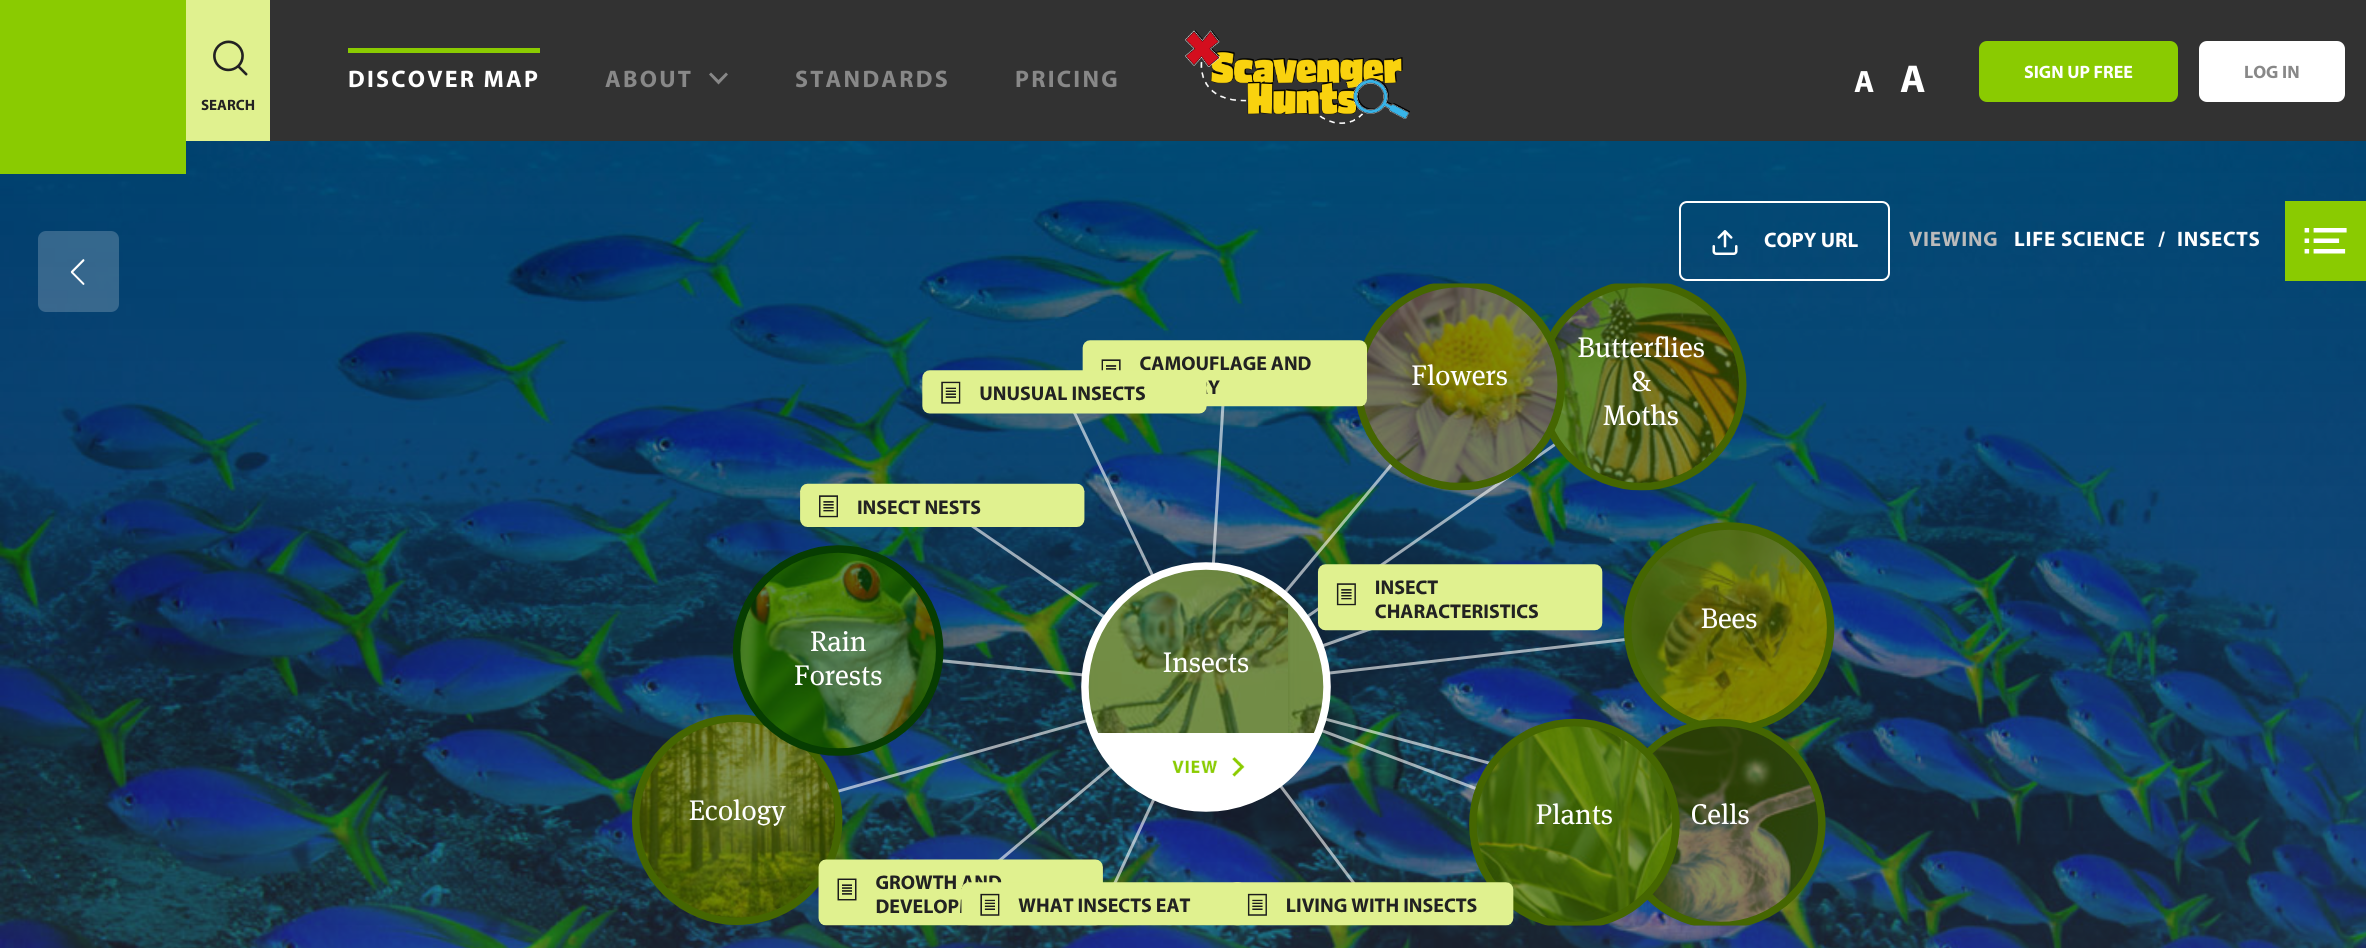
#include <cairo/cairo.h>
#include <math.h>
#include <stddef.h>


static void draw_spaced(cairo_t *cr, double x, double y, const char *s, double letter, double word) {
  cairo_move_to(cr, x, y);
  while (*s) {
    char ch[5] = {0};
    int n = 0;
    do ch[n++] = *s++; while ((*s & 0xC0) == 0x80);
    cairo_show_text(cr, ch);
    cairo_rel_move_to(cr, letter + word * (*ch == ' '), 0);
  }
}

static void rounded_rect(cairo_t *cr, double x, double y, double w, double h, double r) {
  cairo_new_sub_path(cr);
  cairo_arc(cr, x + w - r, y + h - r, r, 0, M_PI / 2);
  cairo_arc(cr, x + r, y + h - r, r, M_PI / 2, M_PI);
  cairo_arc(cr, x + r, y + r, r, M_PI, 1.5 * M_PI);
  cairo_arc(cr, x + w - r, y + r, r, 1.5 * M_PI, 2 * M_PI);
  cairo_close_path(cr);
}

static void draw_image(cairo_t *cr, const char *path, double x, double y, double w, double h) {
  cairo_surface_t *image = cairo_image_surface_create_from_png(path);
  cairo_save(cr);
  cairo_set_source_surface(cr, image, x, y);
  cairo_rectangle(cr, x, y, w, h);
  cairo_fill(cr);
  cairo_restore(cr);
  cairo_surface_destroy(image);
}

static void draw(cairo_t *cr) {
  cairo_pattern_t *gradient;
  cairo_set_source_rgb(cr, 1, 1, 1);
  cairo_paint(cr);
  cairo_set_source_rgb(cr, 50 / 255.0, 50 / 255.0, 50 / 255.0);
  cairo_rectangle(cr, 270, 0, 2096, 141);
  cairo_fill(cr);
  gradient = cairo_pattern_create_linear(1184, 141, 1184, 948);
  cairo_pattern_add_color_stop_rgba(gradient, 0.01, 0, 0, 0, 1);
  cairo_pattern_add_color_stop_rgba(gradient, 1, 51 / 255.0, 51 / 255.0, 51 / 255.0, 1);
  cairo_set_source(cr, gradient);
  cairo_pattern_destroy(gradient);
  cairo_rectangle(cr, 0, 141, 2366, 807);
  cairo_fill(cr);
  draw_image(cr, "images/3.png", 0, 141, 2366, 807);
  cairo_set_source_rgb(cr, 138 / 255.0, 203 / 255.0, 1 / 255.0);
  cairo_rectangle(cr, 0, 0, 186, 174);
  cairo_fill(cr);
  cairo_rectangle(cr, 348, 48, 192, 5);
  cairo_fill(cr);
  cairo_set_source_rgb(cr, 136 / 255.0, 136 / 255.0, 136 / 255.0);
  cairo_new_path(cr);
  cairo_move_to(cr, 718.5, 84.5);
  cairo_line_to(cr, 709, 74.5);
  cairo_line_to(cr, 711, 72.5);
  cairo_line_to(cr, 718.5, 80);
  cairo_line_to(cr, 726, 72.5);
  cairo_line_to(cr, 728, 74.5);
  cairo_close_path(cr);
  cairo_fill(cr);
  draw_image(cr, "images/1.png", 1185, 30, 225, 94);
  cairo_set_source_rgb(cr, 138 / 255.0, 203 / 255.0, 1 / 255.0);
  rounded_rect(cr, 1979, 41, 199, 61, 8);
  cairo_fill(cr);
  cairo_set_source_rgb(cr, 1, 1, 1);
  rounded_rect(cr, 2199, 41, 146, 61, 8);
  cairo_fill(cr);
  cairo_set_source_rgb(cr, 224 / 255.0, 241 / 255.0, 143 / 255.0);
  cairo_rectangle(cr, 186, 0, 84, 141);
  cairo_fill(cr);
  draw_image(cr, "images/2.png", 213, 40, 35, 36);
  cairo_set_source_rgba(cr, 1, 1, 1, 0.2);
  rounded_rect(cr, 38, 231, 81, 81, 8);
  cairo_fill(cr);
  draw_image(cr, "images/4.png", 70, 259, 15, 26);
  rounded_rect(cr, 1680, 202, 209, 78, 7);
  cairo_set_source_rgb(cr, 1, 1, 1);
  cairo_stroke(cr);
  draw_image(cr, "images/5.png", 1712, 230, 26, 25);
  cairo_set_source_rgb(cr, 138 / 255.0, 203 / 255.0, 1 / 255.0);
  cairo_rectangle(cr, 2285, 201, 81, 80);
  cairo_fill(cr);
  draw_image(cr, "images/6.png", 2304, 228, 43, 26);
  draw_image(cr, "images/7.png", 631, 283, 1204, 643);
  cairo_select_font_face(cr, "Myriad", CAIRO_FONT_SLANT_NORMAL, CAIRO_FONT_WEIGHT_BOLD);
  cairo_set_font_size(cr, 24);
  cairo_set_source_rgb(cr, 1, 1, 1);
  draw_spaced(cr, 348, 87, "DISCOVER MAP", 2.25, 0);
  cairo_set_source_rgb(cr, 136 / 255.0, 136 / 255.0, 136 / 255.0);
  draw_spaced(cr, 605, 87, "ABOUT", 2.25, 0);
  draw_spaced(cr, 795, 87, "STANDARDS", 2.25, 0);
  draw_spaced(cr, 1015, 87, "PRICING", 2.25, 0);
  cairo_set_font_size(cr, 31);
  cairo_set_source_rgb(cr, 1, 1, 1);
  cairo_move_to(cr, 1854, 92);
  cairo_show_text(cr, "A");
  cairo_set_font_size(cr, 39);
  cairo_move_to(cr, 1900, 92);
  cairo_show_text(cr, "A");
  cairo_set_font_size(cr, 18);
  cairo_move_to(cr, 2024, 78);
  cairo_show_text(cr, "SIGN UP FREE");
  cairo_set_source_rgb(cr, 136 / 255.0, 136 / 255.0, 136 / 255.0);
  cairo_move_to(cr, 2244, 78);
  cairo_show_text(cr, "LOG IN");
  cairo_set_font_size(cr, 15);
  cairo_set_source_rgb(cr, 34 / 255.0, 34 / 255.0, 34 / 255.0);
  cairo_move_to(cr, 201, 110);
  cairo_show_text(cr, "SEARCH");
  cairo_set_font_size(cr, 21);
  cairo_set_source_rgb(cr, 1, 1, 1);
  cairo_move_to(cr, 1764, 247);
  cairo_show_text(cr, "COPY URL");
  cairo_set_source_rgb(cr, 187 / 255.0, 187 / 255.0, 187 / 255.0);
  draw_spaced(cr, 1909, 246, "VIEWING", 0.75, 0);
  cairo_set_source_rgb(cr, 1, 1, 1);
  draw_spaced(cr, 2014, 246, "LIFE SCIENCE", 0.75, 0);
  cairo_move_to(cr, 2158, 246);
  cairo_show_text(cr, "/");
  draw_spaced(cr, 2177, 246, "INSECTS", 0.75, 0);
}

int main(void) {
  cairo_surface_t *surface = cairo_image_surface_create(CAIRO_FORMAT_RGB24, 2366, 948);
  cairo_t *cr = cairo_create(surface);
  cairo_font_options_t *options = cairo_font_options_create();
  cairo_font_options_set_hint_metrics(options, CAIRO_HINT_METRICS_OFF);
  cairo_font_options_set_hint_style(options, CAIRO_HINT_STYLE_NONE);
  cairo_set_font_options(cr, options);
  cairo_set_miter_limit(cr, 4);
  draw(cr);
  cairo_surface_write_to_png(surface, "out.png");
  cairo_font_options_destroy(options);
  cairo_destroy(cr);
  cairo_surface_destroy(surface);
  return 0;
}
